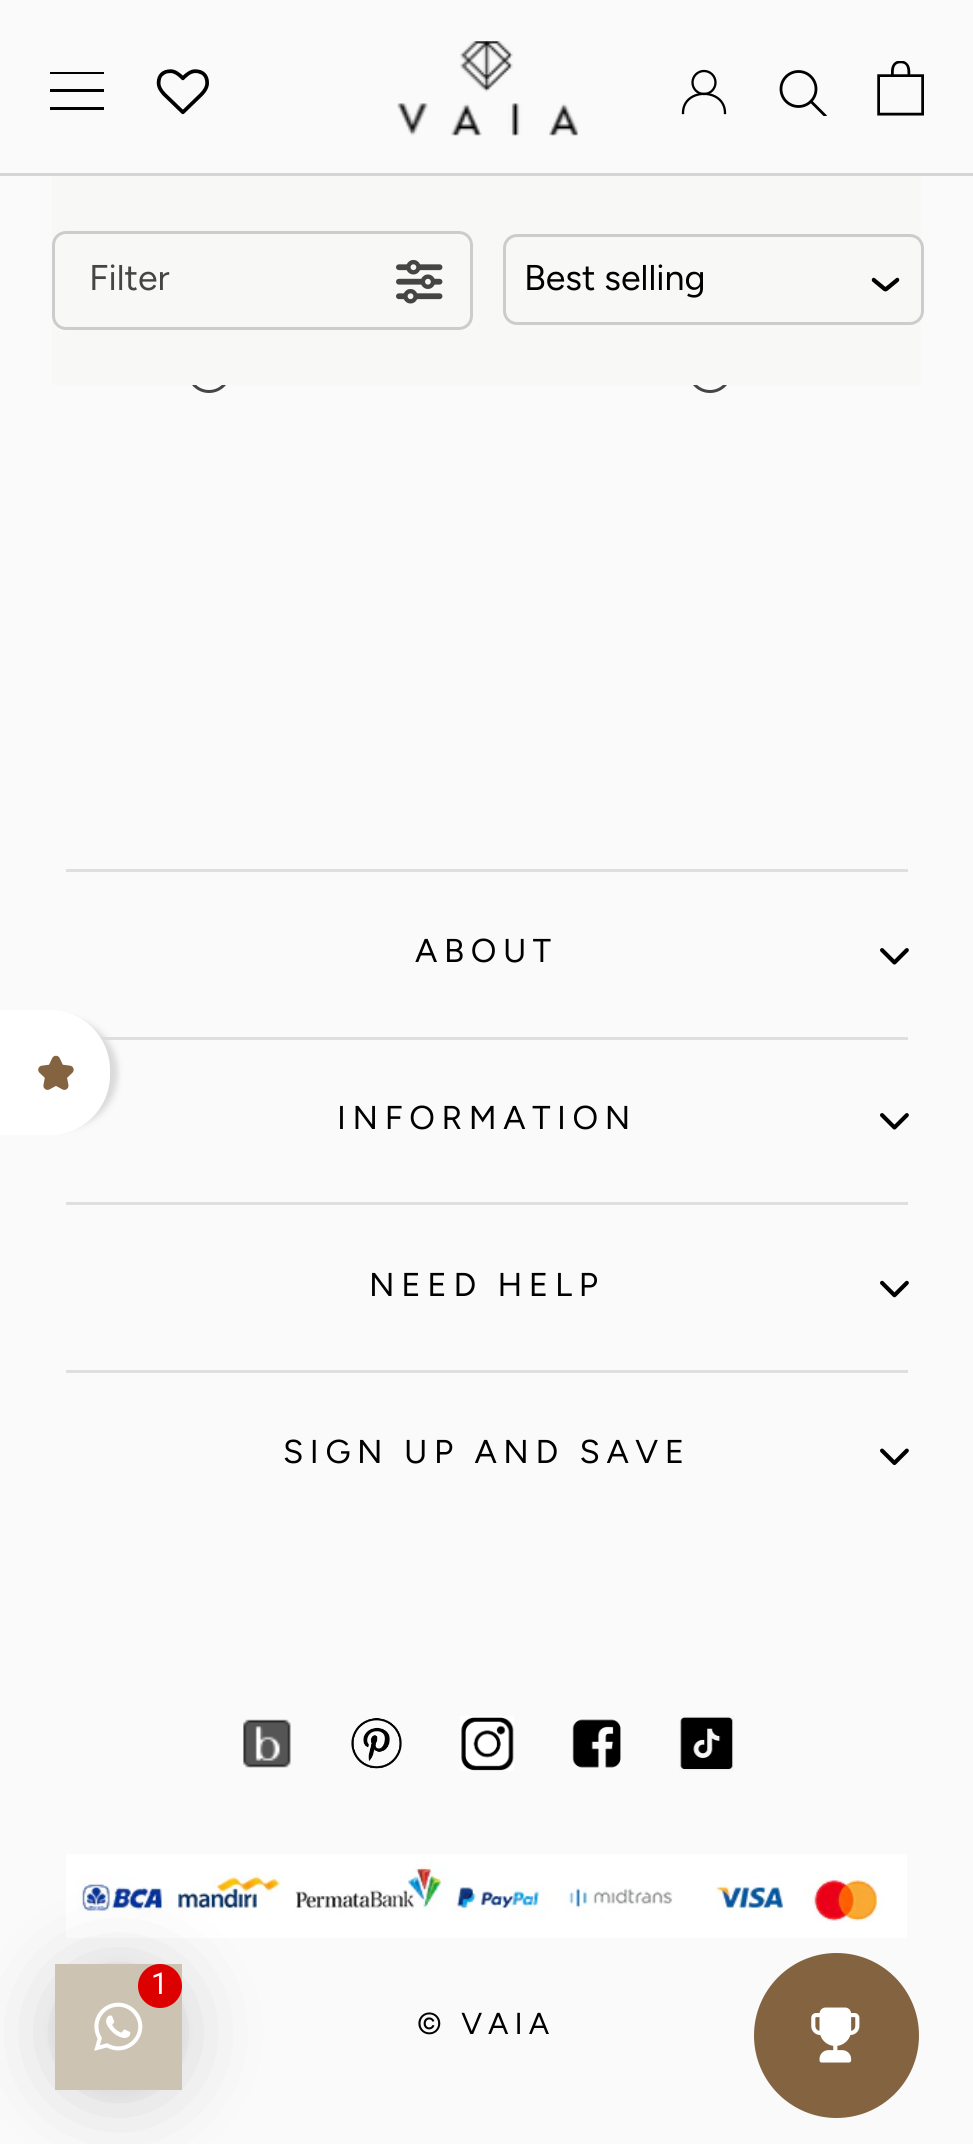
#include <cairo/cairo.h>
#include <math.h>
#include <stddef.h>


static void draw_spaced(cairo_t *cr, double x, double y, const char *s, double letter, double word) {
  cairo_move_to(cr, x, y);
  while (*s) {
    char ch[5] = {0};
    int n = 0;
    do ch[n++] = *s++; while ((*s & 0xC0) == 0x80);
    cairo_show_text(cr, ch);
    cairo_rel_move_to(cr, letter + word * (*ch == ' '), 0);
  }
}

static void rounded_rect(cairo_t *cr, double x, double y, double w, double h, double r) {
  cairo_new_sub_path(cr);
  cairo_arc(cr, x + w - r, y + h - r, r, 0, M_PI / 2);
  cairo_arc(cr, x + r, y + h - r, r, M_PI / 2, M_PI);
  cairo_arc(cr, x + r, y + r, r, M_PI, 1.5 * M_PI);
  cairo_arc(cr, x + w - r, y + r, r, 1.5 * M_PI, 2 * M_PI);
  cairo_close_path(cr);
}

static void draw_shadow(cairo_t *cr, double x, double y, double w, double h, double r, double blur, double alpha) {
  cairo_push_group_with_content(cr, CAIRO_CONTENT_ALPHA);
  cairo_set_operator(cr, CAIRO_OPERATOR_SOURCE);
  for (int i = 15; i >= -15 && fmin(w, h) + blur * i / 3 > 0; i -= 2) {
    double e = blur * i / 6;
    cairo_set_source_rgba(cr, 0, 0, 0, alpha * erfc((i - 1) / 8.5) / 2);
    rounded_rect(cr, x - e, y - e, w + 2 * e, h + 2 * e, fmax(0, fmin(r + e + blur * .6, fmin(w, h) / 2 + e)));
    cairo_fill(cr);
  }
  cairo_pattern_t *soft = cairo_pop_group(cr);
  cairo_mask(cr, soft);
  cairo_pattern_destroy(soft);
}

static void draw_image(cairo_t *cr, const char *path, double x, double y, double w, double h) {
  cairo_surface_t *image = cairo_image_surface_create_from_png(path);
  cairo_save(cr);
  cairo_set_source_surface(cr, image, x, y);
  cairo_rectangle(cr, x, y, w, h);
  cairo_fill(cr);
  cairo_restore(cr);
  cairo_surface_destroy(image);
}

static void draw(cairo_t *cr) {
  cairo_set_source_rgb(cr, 250 / 255.0, 250 / 255.0, 250 / 255.0);
  cairo_paint(cr);
  cairo_set_source_rgb(cr, 213 / 255.0, 213 / 255.0, 213 / 255.0);
  cairo_rectangle(cr, 0, 173, 973, 3);
  cairo_fill(cr);
  cairo_set_source_rgb(cr, 0, 0, 0);
  cairo_new_path(cr);
  cairo_move_to(cr, 50, 110);
  cairo_line_to(cr, 50, 107);
  cairo_line_to(cr, 104, 107);
  cairo_line_to(cr, 104, 110);
  cairo_close_path(cr);
  cairo_move_to(cr, 50, 89);
  cairo_line_to(cr, 104, 89);
  cairo_line_to(cr, 104, 92);
  cairo_line_to(cr, 50, 92);
  cairo_close_path(cr);
  cairo_move_to(cr, 50, 72);
  cairo_line_to(cr, 104, 72);
  cairo_line_to(cr, 104, 74);
  cairo_line_to(cr, 50, 74);
  cairo_close_path(cr);
  cairo_fill(cr);
  draw_image(cr, "images/1.png", 156, 69, 53, 46);
  draw_image(cr, "images/2.png", 397, 41, 181, 95);
  cairo_new_path(cr);
  cairo_move_to(cr, 683, 113);
  cairo_curve_to(cr, 683, 87.5, 725, 87.5, 725, 113);
  cairo_set_line_width(cr, 2.3);
  cairo_set_line_cap(cr, CAIRO_LINE_CAP_SQUARE);
  cairo_stroke(cr);
  cairo_arc(cr, 704, 82.5, 11.5, 0, 2 * M_PI);
  cairo_set_line_cap(cr, CAIRO_LINE_CAP_BUTT);
  cairo_stroke(cr);
  cairo_save(cr);
  cairo_rectangle(cr, 778, 69, 50, 47);
  cairo_clip(cr);
  cairo_new_path(cr);
  cairo_move_to(cr, 825, 115.5);
  cairo_line_to(cr, 811, 101.5);
  cairo_set_line_width(cr, 2.8);
  cairo_set_line_cap(cr, CAIRO_LINE_CAP_SQUARE);
  cairo_stroke(cr);
  cairo_restore(cr);
  cairo_arc(cr, 798.5, 89, 17.5, 0, 2 * M_PI);
  cairo_set_line_width(cr, 2.8);
  cairo_stroke(cr);
  draw_image(cr, "images/3.png", 877, 61, 47, 55);
  cairo_arc(cr, 209, 371, 20.5, 0, 2 * M_PI);
  cairo_set_source_rgb(cr, 69 / 255.0, 69 / 255.0, 69 / 255.0);
  cairo_set_line_width(cr, 3);
  cairo_stroke(cr);
  cairo_arc(cr, 710, 371, 20.5, 0, 2 * M_PI);
  cairo_stroke(cr);
  cairo_set_source_rgb(cr, 248 / 255.0, 248 / 255.0, 246 / 255.0);
  cairo_rectangle(cr, 52, 176, 869, 209);
  cairo_fill(cr);
  rounded_rect(cr, 53.5, 232.5, 418, 96, 12.5);
  cairo_set_source_rgb(cr, 204 / 255.0, 204 / 255.0, 204 / 255.0);
  cairo_stroke(cr);
  draw_image(cr, "images/4.png", 396, 259, 47, 45);
  draw_image(cr, "images/5.png", 871, 277, 29, 15);
  rounded_rect(cr, 504.5, 235.5, 418, 88, 12.5);
  cairo_stroke(cr);
  cairo_set_source_rgb(cr, 223 / 255.0, 223 / 255.0, 223 / 255.0);
  cairo_rectangle(cr, 66, 869, 842, 3);
  cairo_fill(cr);
  draw_image(cr, "images/6.png", 880, 948, 29, 17);
  cairo_rectangle(cr, 100, 1037, 808, 3);
  cairo_fill(cr);
  draw_image(cr, "images/6.png", 880, 1113, 29, 17);
  cairo_rectangle(cr, 66, 1202, 842, 3);
  cairo_fill(cr);
  draw_image(cr, "images/7.png", 880, 1280, 29, 18);
  cairo_rectangle(cr, 66, 1370, 842, 3);
  cairo_fill(cr);
  draw_image(cr, "images/8.png", 880, 1448, 29, 17);
  draw_image(cr, "images/9.png", 243, 1719, 48, 49);
  draw_image(cr, "images/10.png", 351, 1718, 51, 51);
  draw_image(cr, "images/11.png", 460, 1716, 54, 55);
  draw_image(cr, "images/12.png", 572, 1719, 49, 49);
  draw_image(cr, "images/13.png", 679, 1716, 55, 55);
  draw_image(cr, "images/14.png", 66, 1854, 841, 84);
  cairo_set_source_rgb(cr, 218 / 255.0, 218 / 255.0, 218 / 255.0);
  draw_shadow(cr, -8, 1018, 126, 110, 61, 3, 1);
  cairo_set_source_rgb(cr, 1, 1, 1);
  cairo_new_path(cr);
  cairo_move_to(cr, 0, 1135);
  cairo_line_to(cr, 0, 1010);
  cairo_line_to(cr, 50, 1010);
  cairo_curve_to(cr, 83, 1010, 110, 1037, 110, 1070);
  cairo_line_to(cr, 110, 1075);
  cairo_curve_to(cr, 110, 1108, 83, 1135, 50, 1135);
  cairo_close_path(cr);
  cairo_fill(cr);
  draw_image(cr, "images/15.png", 38, 1055, 36, 35);
  cairo_set_source_rgb(cr, 132 / 255.0, 99 / 255.0, 64 / 255.0);
  cairo_arc(cr, 836.5, 2035.5, 82.5, 0, 2 * M_PI);
  cairo_fill(cr);
  draw_image(cr, "images/16.png", 811, 2007, 49, 56);
  cairo_set_source_rgb(cr, 0, 0, 0);
  draw_shadow(cr, 55, 1969, 127, 127, 63.5, 44, 0.16);
  draw_shadow(cr, 55, 1966, 127, 127, 63.5, 8, 0.06);
  cairo_set_source_rgb(cr, 205 / 255.0, 195 / 255.0, 178 / 255.0);
  cairo_rectangle(cr, 55, 1964, 127, 126);
  cairo_fill(cr);
  draw_image(cr, "images/17.png", 94, 2002, 49, 49);
  cairo_set_source_rgb(cr, 221 / 255.0, 0, 0);
  cairo_arc(cr, 160, 1986, 22, 0, 2 * M_PI);
  cairo_fill(cr);
  cairo_select_font_face(cr, "Figtree", CAIRO_FONT_SLANT_NORMAL, CAIRO_FONT_WEIGHT_NORMAL);
  cairo_set_font_size(cr, 35.75);
  cairo_set_source_rgb(cr, 69 / 255.0, 69 / 255.0, 69 / 255.0);
  cairo_move_to(cr, 89, 290);
  cairo_show_text(cr, "Filter");
  cairo_set_source_rgb(cr, 0, 0, 0);
  cairo_move_to(cr, 524, 290);
  cairo_show_text(cr, "Best selling");
  cairo_set_font_size(cr, 33);
  draw_spaced(cr, 415, 962, "ABOUT", 6.6, 0);
  draw_spaced(cr, 337, 1129, "INFORMATION", 6.6, 0);
  draw_spaced(cr, 369, 1296, "NEED HELP", 6.6, 0);
  draw_spaced(cr, 283, 1463, "SIGN UP AND SAVE", 6.6, 0);
  cairo_set_font_size(cr, 30.25);
  draw_spaced(cr, 417, 2034, "© VAIA", 6, 0);
  cairo_select_font_face(cr, "Roboto", CAIRO_FONT_SLANT_NORMAL, CAIRO_FONT_WEIGHT_NORMAL);
  cairo_set_source_rgb(cr, 1, 1, 1);
  cairo_move_to(cr, 151, 1994);
  cairo_show_text(cr, "1");
}

int main(void) {
  cairo_surface_t *surface = cairo_image_surface_create(CAIRO_FORMAT_RGB24, 973, 2144);
  cairo_t *cr = cairo_create(surface);
  cairo_font_options_t *options = cairo_font_options_create();
  cairo_font_options_set_hint_metrics(options, CAIRO_HINT_METRICS_OFF);
  cairo_font_options_set_hint_style(options, CAIRO_HINT_STYLE_NONE);
  cairo_set_font_options(cr, options);
  cairo_set_miter_limit(cr, 4);
  draw(cr);
  cairo_surface_write_to_png(surface, "out.png");
  cairo_font_options_destroy(options);
  cairo_destroy(cr);
  cairo_surface_destroy(surface);
  return 0;
}
